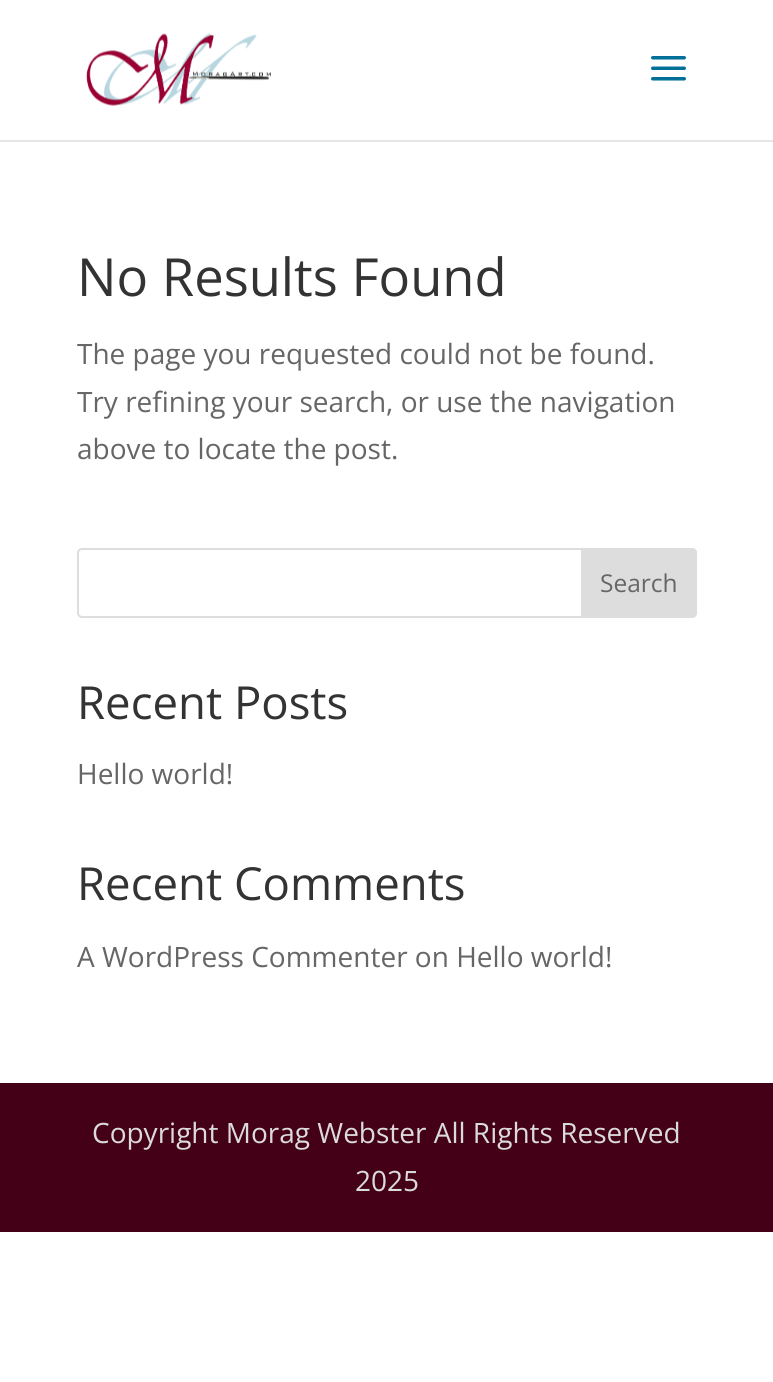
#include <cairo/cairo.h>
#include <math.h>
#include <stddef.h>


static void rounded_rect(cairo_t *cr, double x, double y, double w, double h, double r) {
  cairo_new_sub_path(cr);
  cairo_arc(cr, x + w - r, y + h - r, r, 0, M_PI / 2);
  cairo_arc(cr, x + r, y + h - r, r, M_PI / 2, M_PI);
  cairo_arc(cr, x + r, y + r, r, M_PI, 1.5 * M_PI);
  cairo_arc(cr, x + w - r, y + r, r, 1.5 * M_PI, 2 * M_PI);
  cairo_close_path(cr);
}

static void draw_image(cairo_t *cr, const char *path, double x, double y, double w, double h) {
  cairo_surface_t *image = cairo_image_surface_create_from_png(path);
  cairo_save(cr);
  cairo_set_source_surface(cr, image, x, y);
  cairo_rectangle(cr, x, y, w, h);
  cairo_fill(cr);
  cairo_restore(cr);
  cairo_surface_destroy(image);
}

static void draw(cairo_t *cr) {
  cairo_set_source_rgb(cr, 1, 1, 1);
  cairo_paint(cr);
  cairo_set_source_rgb(cr, 230 / 255.0, 230 / 255.0, 230 / 255.0);
  cairo_new_path(cr);
  cairo_move_to(cr, 0, 140);
  cairo_line_to(cr, 0, 142);
  cairo_line_to(cr, 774, 142);
  cairo_line_to(cr, 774, 2);
  cairo_line_to(cr, 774, 140);
  cairo_close_path(cr);
  cairo_fill(cr);
  draw_image(cr, "images/1.png", 86, 33, 185, 73);
  draw_image(cr, "images/2.png", 651, 56, 35, 25);
  rounded_rect(cr, 78, 549, 618, 68, 4);
  cairo_set_source_rgb(cr, 221 / 255.0, 221 / 255.0, 221 / 255.0);
  cairo_stroke(cr);
  cairo_new_path(cr);
  cairo_move_to(cr, 582, 549);
  cairo_line_to(cr, 692, 549);
  cairo_curve_to(cr, 694, 549, 696, 551, 696, 553);
  cairo_line_to(cr, 696, 613);
  cairo_curve_to(cr, 696, 615, 694, 617, 692, 617);
  cairo_line_to(cr, 582, 617);
  cairo_close_path(cr);
  cairo_fill_preserve(cr);
  cairo_stroke(cr);
  cairo_set_source_rgb(cr, 68 / 255.0, 0, 23 / 255.0);
  cairo_rectangle(cr, 0, 1083, 773, 149);
  cairo_fill(cr);
  cairo_select_font_face(cr, "Open Sans", CAIRO_FONT_SLANT_NORMAL, CAIRO_FONT_WEIGHT_NORMAL);
  cairo_set_font_size(cr, 52.5);
  cairo_set_source_rgb(cr, 51 / 255.0, 51 / 255.0, 51 / 255.0);
  cairo_move_to(cr, 77, 296);
  cairo_show_text(cr, "No Results Found");
  cairo_set_font_size(cr, 28);
  cairo_set_source_rgb(cr, 102 / 255.0, 102 / 255.0, 102 / 255.0);
  cairo_move_to(cr, 77, 364);
  cairo_show_text(cr, "The page you requested could not be found.");
  cairo_move_to(cr, 77, 412);
  cairo_show_text(cr, "Try refining your search, or use the navigation");
  cairo_move_to(cr, 77, 459);
  cairo_show_text(cr, "above to locate the post.");
  cairo_set_font_size(cr, 24.5);
  cairo_move_to(cr, 600, 592);
  cairo_show_text(cr, "Search");
  cairo_set_font_size(cr, 45.5);
  cairo_set_source_rgb(cr, 51 / 255.0, 51 / 255.0, 51 / 255.0);
  cairo_move_to(cr, 77, 719);
  cairo_show_text(cr, "Recent Posts");
  cairo_set_font_size(cr, 28);
  cairo_set_source_rgb(cr, 102 / 255.0, 102 / 255.0, 102 / 255.0);
  cairo_move_to(cr, 77, 784);
  cairo_show_text(cr, "Hello world!");
  cairo_set_font_size(cr, 45.5);
  cairo_set_source_rgb(cr, 51 / 255.0, 51 / 255.0, 51 / 255.0);
  cairo_move_to(cr, 77, 900);
  cairo_show_text(cr, "Recent Comments");
  cairo_set_font_size(cr, 28);
  cairo_set_source_rgb(cr, 102 / 255.0, 102 / 255.0, 102 / 255.0);
  cairo_move_to(cr, 77, 967);
  cairo_show_text(cr, "A WordPress Commenter on Hello world!");
  cairo_set_source_rgb(cr, 219 / 255.0, 219 / 255.0, 219 / 255.0);
  cairo_move_to(cr, 92, 1143);
  cairo_show_text(cr, "Copyright Morag Webster All Rights Reserved");
  cairo_move_to(cr, 355, 1191);
  cairo_show_text(cr, "2025");
}

int main(void) {
  cairo_surface_t *surface = cairo_image_surface_create(CAIRO_FORMAT_RGB24, 773, 1382);
  cairo_t *cr = cairo_create(surface);
  cairo_font_options_t *options = cairo_font_options_create();
  cairo_font_options_set_hint_metrics(options, CAIRO_HINT_METRICS_OFF);
  cairo_font_options_set_hint_style(options, CAIRO_HINT_STYLE_NONE);
  cairo_set_font_options(cr, options);
  cairo_set_miter_limit(cr, 4);
  draw(cr);
  cairo_surface_write_to_png(surface, "out.png");
  cairo_font_options_destroy(options);
  cairo_destroy(cr);
  cairo_surface_destroy(surface);
  return 0;
}
